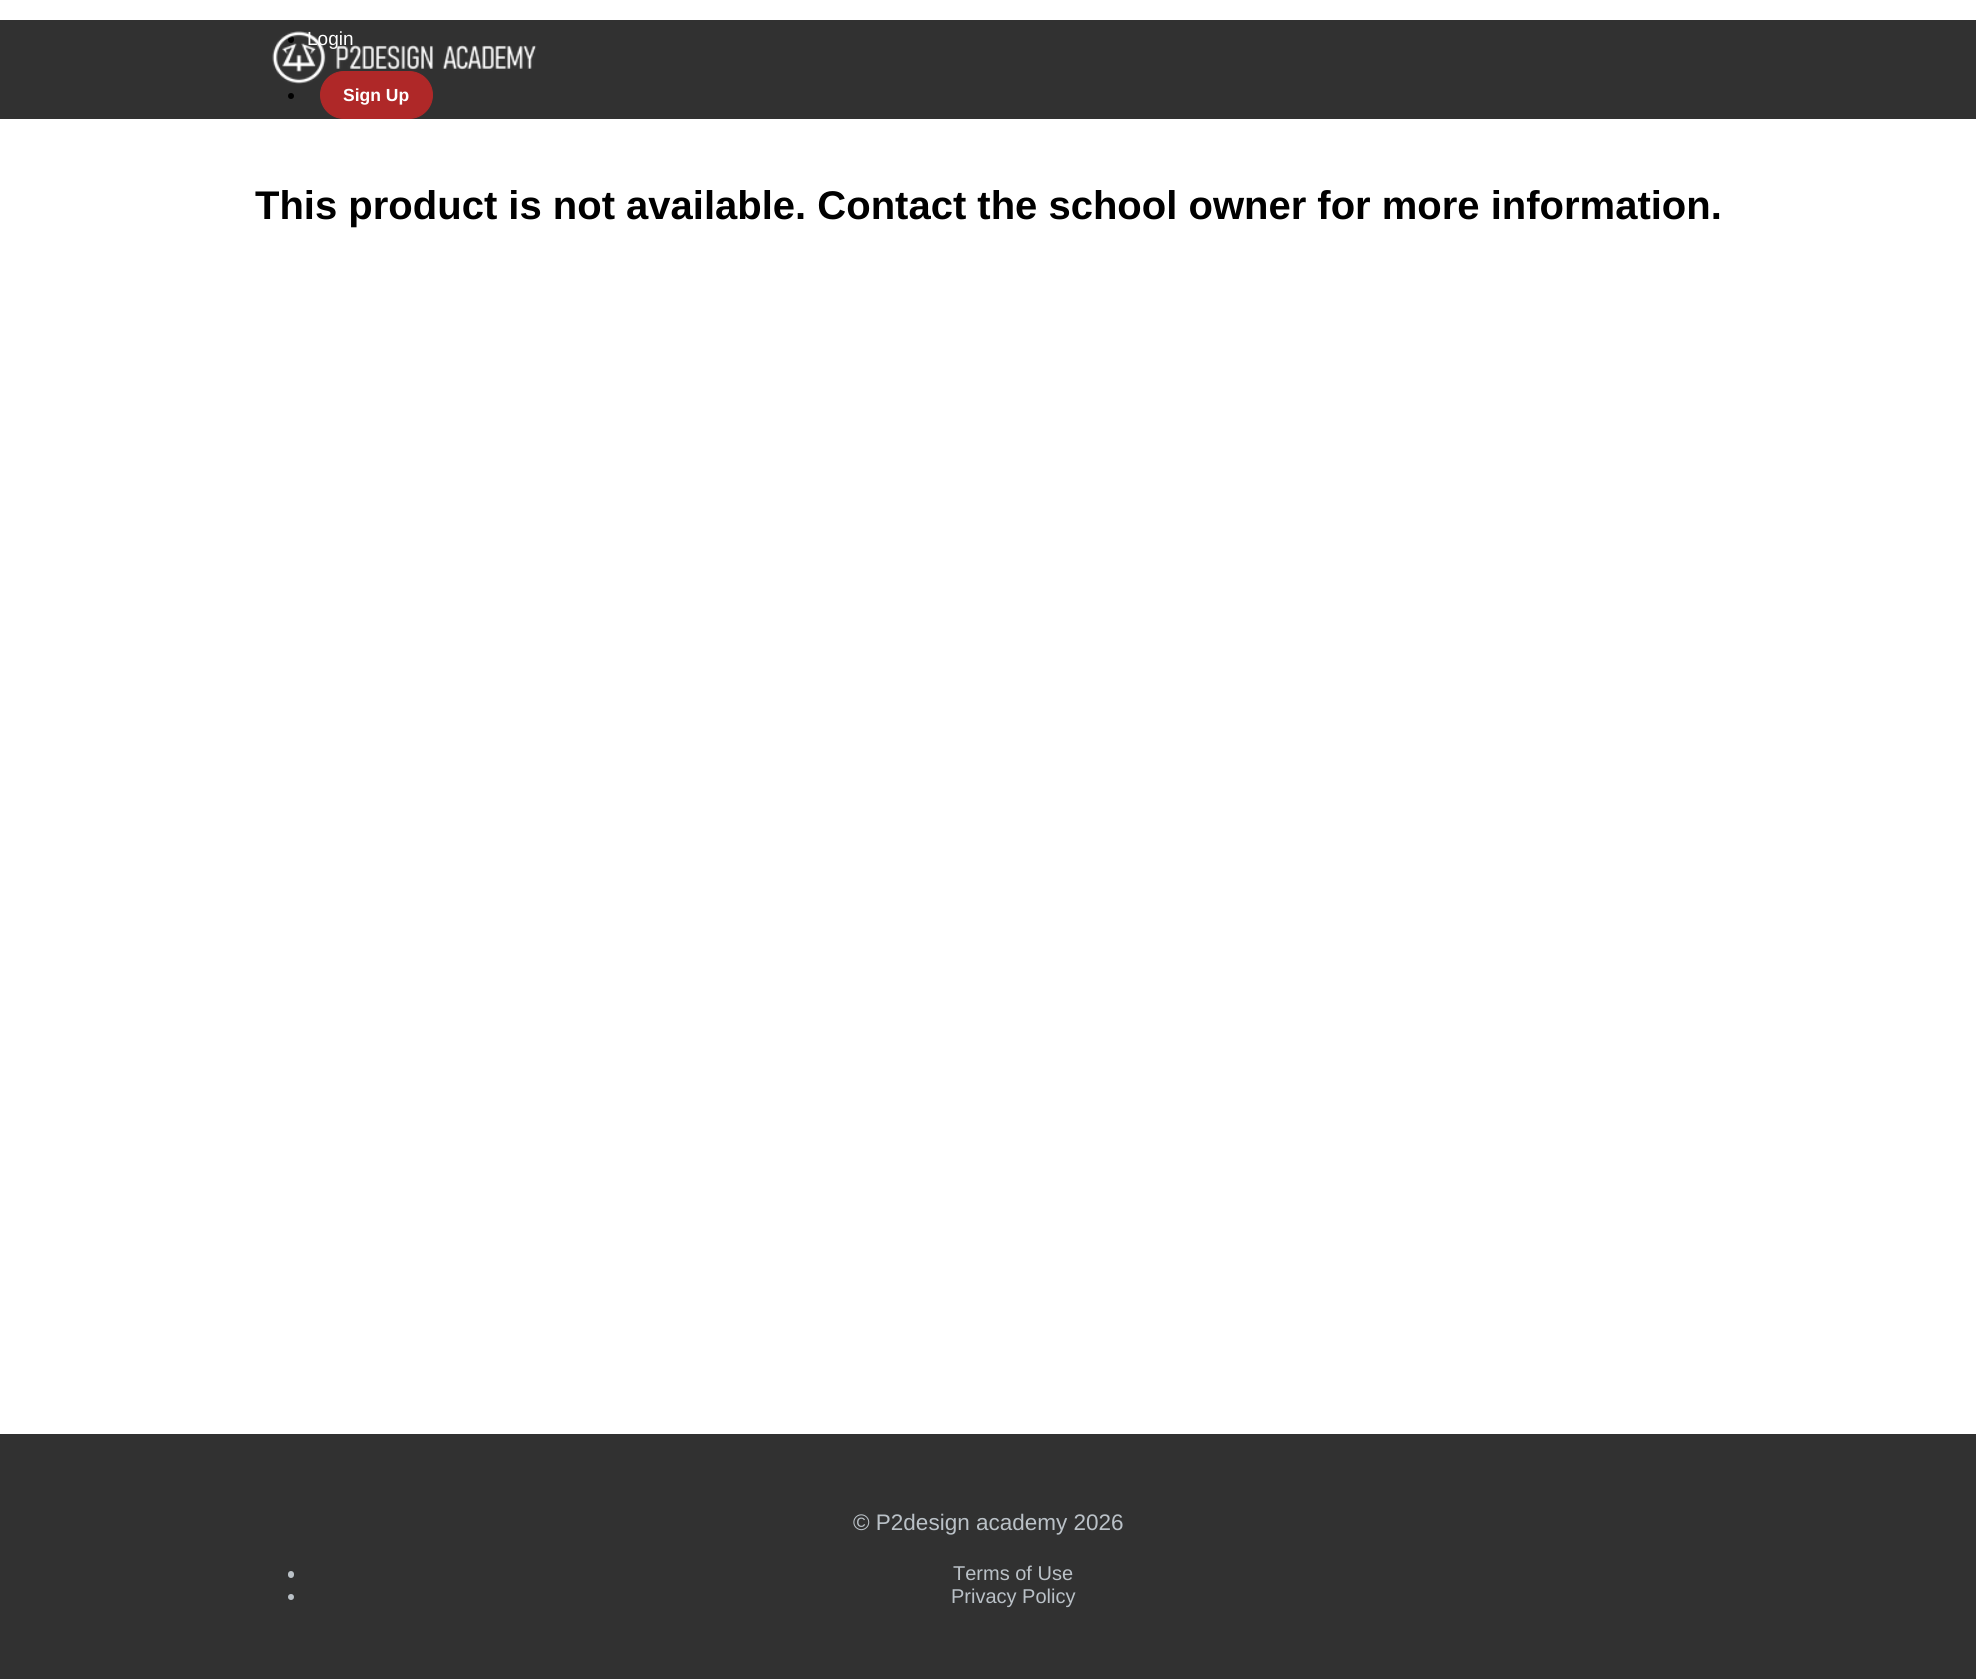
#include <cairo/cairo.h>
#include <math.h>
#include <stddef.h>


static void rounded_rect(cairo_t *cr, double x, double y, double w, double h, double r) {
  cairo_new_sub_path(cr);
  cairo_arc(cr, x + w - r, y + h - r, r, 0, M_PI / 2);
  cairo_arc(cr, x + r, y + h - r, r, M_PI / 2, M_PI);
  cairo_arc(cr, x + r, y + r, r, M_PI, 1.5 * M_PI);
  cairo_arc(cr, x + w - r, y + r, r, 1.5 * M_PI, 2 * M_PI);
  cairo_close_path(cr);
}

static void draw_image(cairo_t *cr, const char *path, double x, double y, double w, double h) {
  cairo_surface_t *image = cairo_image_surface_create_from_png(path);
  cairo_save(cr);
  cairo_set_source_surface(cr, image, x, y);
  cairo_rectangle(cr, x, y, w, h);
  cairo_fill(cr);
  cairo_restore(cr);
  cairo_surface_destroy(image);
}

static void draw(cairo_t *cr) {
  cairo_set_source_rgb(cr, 1, 1, 1);
  cairo_paint(cr);
  cairo_set_source_rgb(cr, 49 / 255.0, 49 / 255.0, 49 / 255.0);
  cairo_rectangle(cr, 0, 20, 1976, 99);
  cairo_fill(cr);
  cairo_set_source_rgb(cr, 0, 0, 0);
  rounded_rect(cr, 288, 36, 6, 7, 3);
  cairo_fill(cr);
  cairo_arc(cr, 291, 96, 3, 0, 2 * M_PI);
  cairo_fill(cr);
  cairo_set_source_rgb(cr, 175 / 255.0, 40 / 255.0, 40 / 255.0);
  rounded_rect(cr, 320.5, 71.5, 112, 47, 23.5);
  cairo_fill_preserve(cr);
  cairo_set_line_width(cr, 1);
  cairo_stroke(cr);
  cairo_set_source_rgb(cr, 49 / 255.0, 49 / 255.0, 49 / 255.0);
  cairo_rectangle(cr, 0, 1434, 1976, 245);
  cairo_fill(cr);
  cairo_set_source_rgb(cr, 186 / 255.0, 193 / 255.0, 199 / 255.0);
  rounded_rect(cr, 288, 1571, 6, 7, 3);
  cairo_fill(cr);
  cairo_arc(cr, 291, 1597, 3, 0, 2 * M_PI);
  cairo_fill(cr);
  cairo_select_font_face(cr, "Liberation Sans", CAIRO_FONT_SLANT_NORMAL, CAIRO_FONT_WEIGHT_NORMAL);
  cairo_set_font_size(cr, 19);
  cairo_set_source_rgb(cr, 1, 1, 1);
  cairo_move_to(cr, 307, 45);
  cairo_show_text(cr, "Login");
  draw_image(cr, "images/1.png", 272, 31, 265, 53);
  cairo_select_font_face(cr, "Liberation Sans", CAIRO_FONT_SLANT_NORMAL, CAIRO_FONT_WEIGHT_BOLD);
  cairo_set_font_size(cr, 17.5);
  cairo_move_to(cr, 343, 101);
  cairo_show_text(cr, "Sign Up");
  cairo_set_font_size(cr, 40);
  cairo_set_source_rgb(cr, 0, 0, 0);
  cairo_move_to(cr, 255, 219);
  cairo_show_text(cr, "This product is not available. Contact the school owner for more information.");
  cairo_select_font_face(cr, "Liberation Sans", CAIRO_FONT_SLANT_NORMAL, CAIRO_FONT_WEIGHT_NORMAL);
  cairo_set_font_size(cr, 22.5);
  cairo_set_source_rgb(cr, 186 / 255.0, 193 / 255.0, 199 / 255.0);
  cairo_move_to(cr, 853, 1530);
  cairo_show_text(cr, "© P2design academy 2026");
  cairo_set_font_size(cr, 20);
  cairo_move_to(cr, 953, 1580);
  cairo_show_text(cr, "Terms of Use");
  cairo_move_to(cr, 951, 1603);
  cairo_show_text(cr, "Privacy Policy");
}

int main(void) {
  cairo_surface_t *surface = cairo_image_surface_create(CAIRO_FORMAT_RGB24, 1976, 1679);
  cairo_t *cr = cairo_create(surface);
  cairo_font_options_t *options = cairo_font_options_create();
  cairo_font_options_set_hint_metrics(options, CAIRO_HINT_METRICS_OFF);
  cairo_font_options_set_hint_style(options, CAIRO_HINT_STYLE_NONE);
  cairo_set_font_options(cr, options);
  cairo_set_miter_limit(cr, 4);
  draw(cr);
  cairo_surface_write_to_png(surface, "out.png");
  cairo_font_options_destroy(options);
  cairo_destroy(cr);
  cairo_surface_destroy(surface);
  return 0;
}
